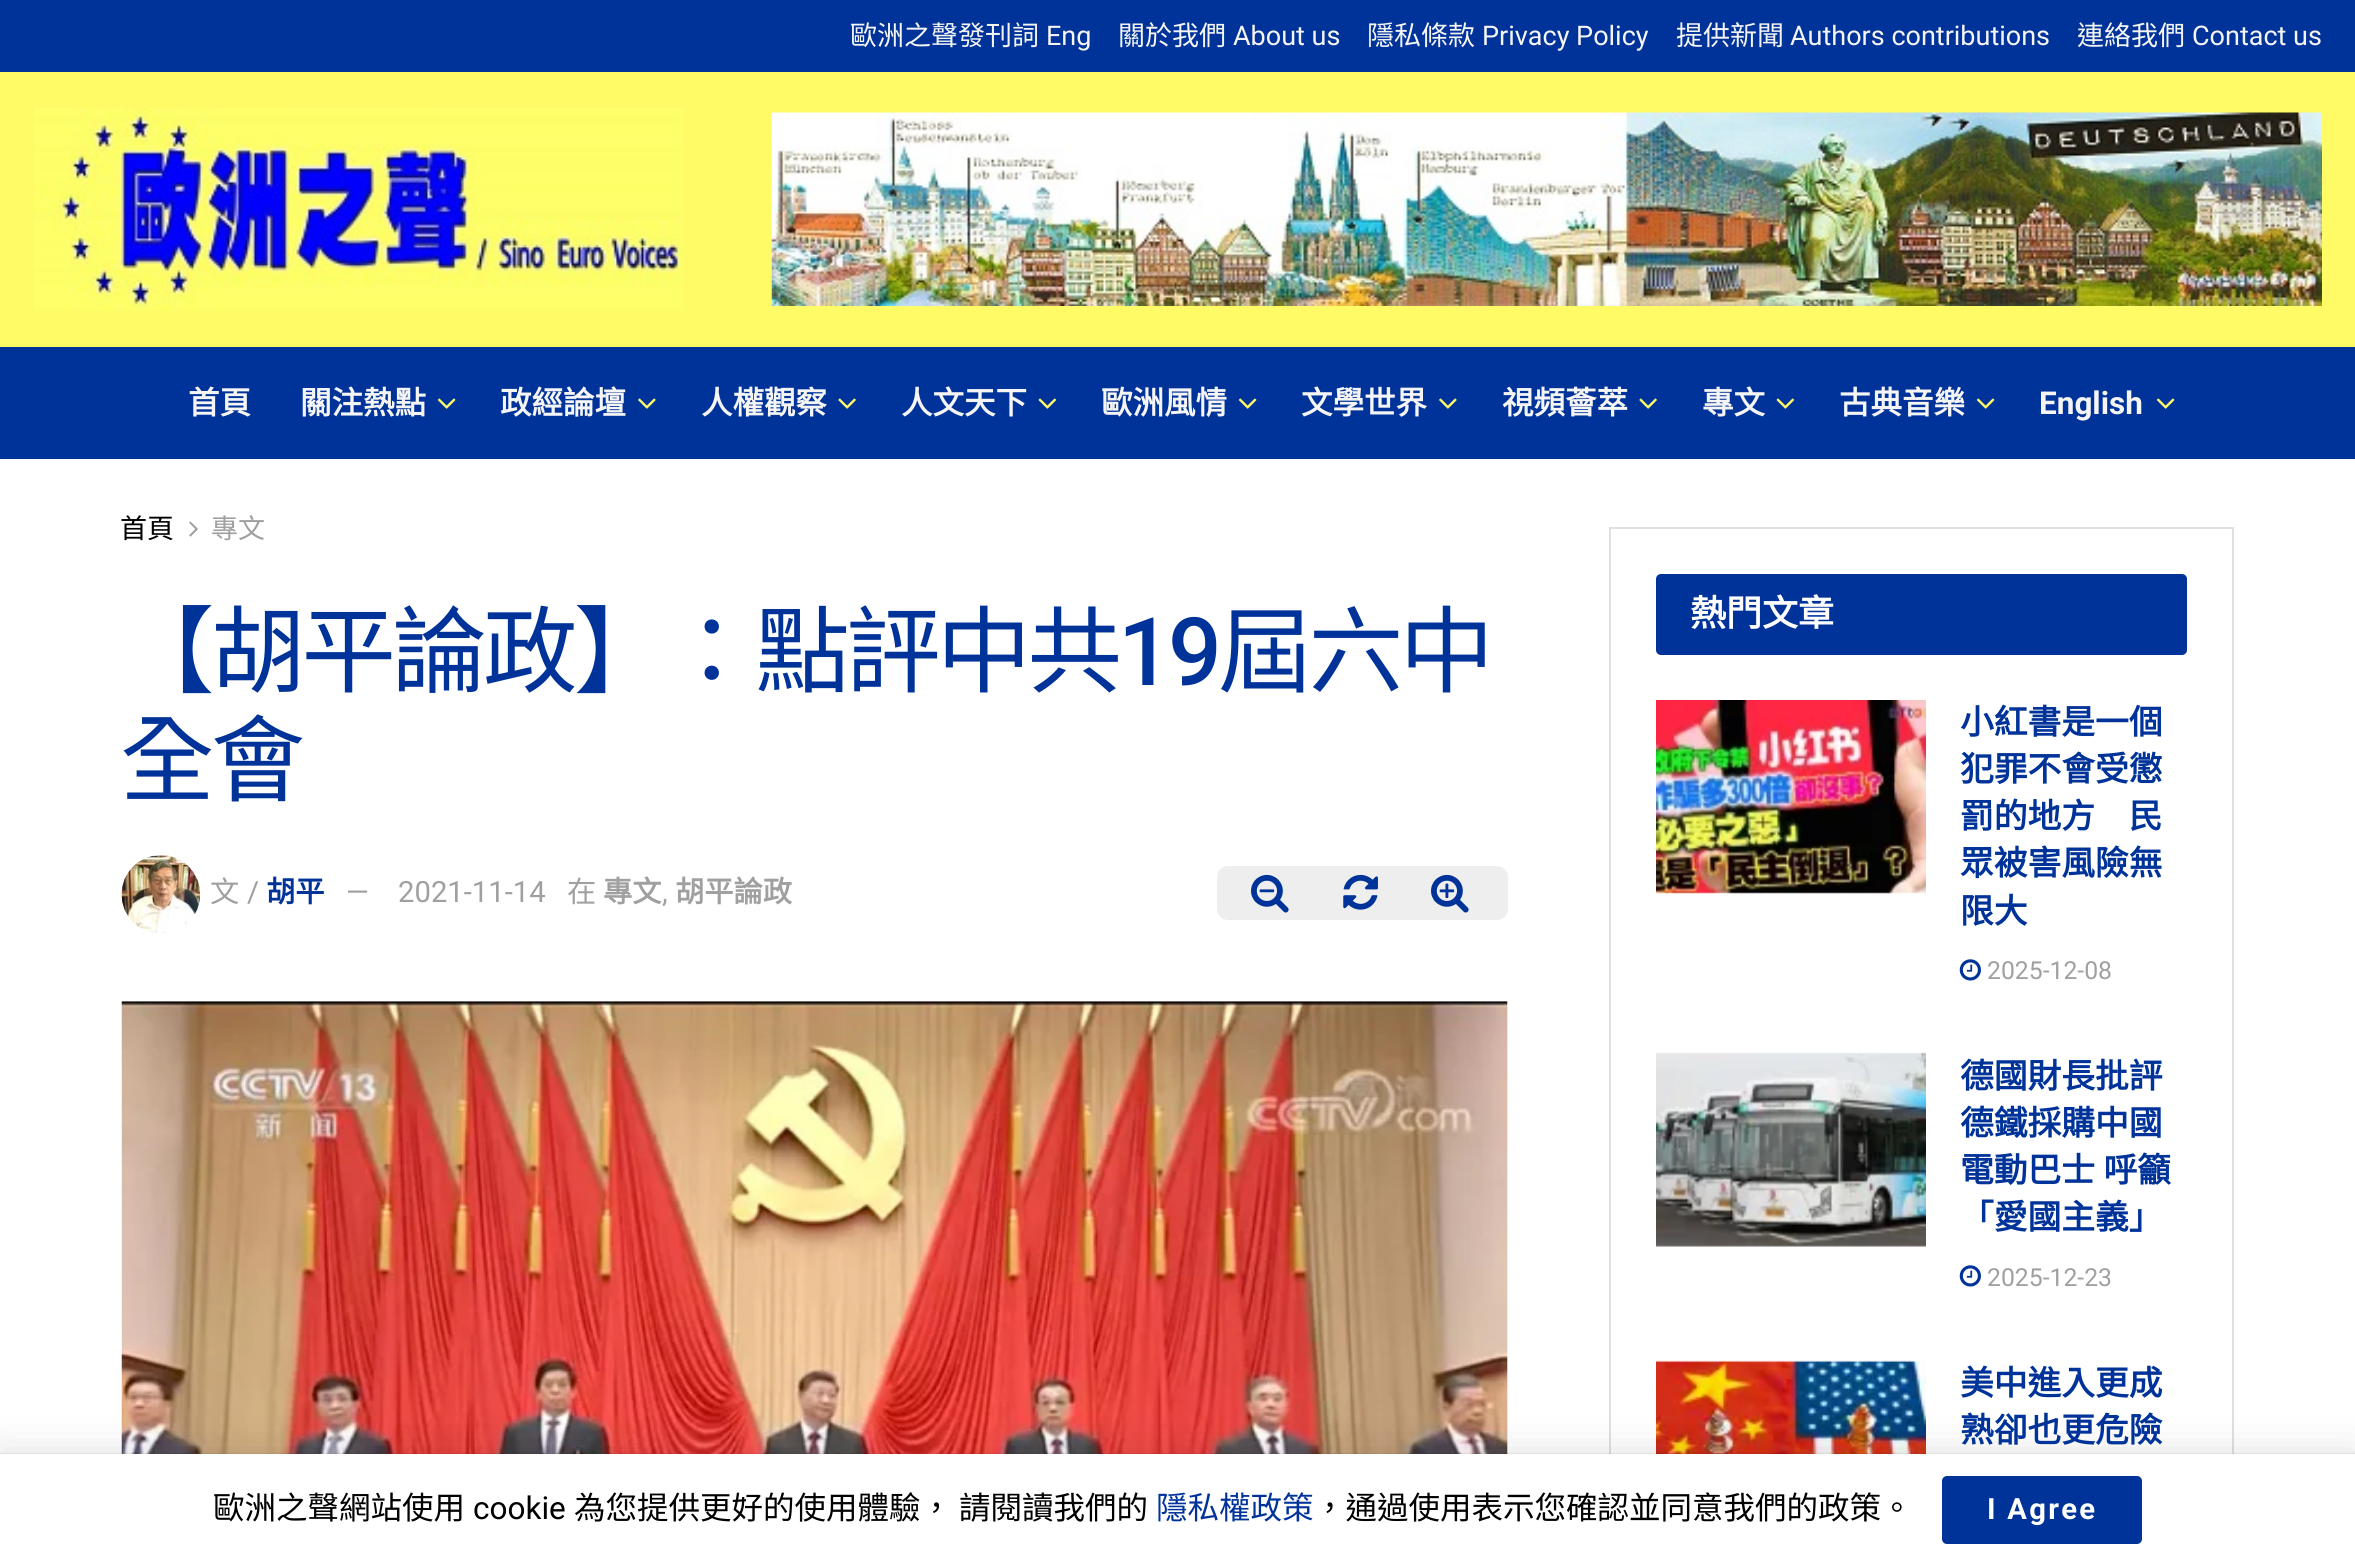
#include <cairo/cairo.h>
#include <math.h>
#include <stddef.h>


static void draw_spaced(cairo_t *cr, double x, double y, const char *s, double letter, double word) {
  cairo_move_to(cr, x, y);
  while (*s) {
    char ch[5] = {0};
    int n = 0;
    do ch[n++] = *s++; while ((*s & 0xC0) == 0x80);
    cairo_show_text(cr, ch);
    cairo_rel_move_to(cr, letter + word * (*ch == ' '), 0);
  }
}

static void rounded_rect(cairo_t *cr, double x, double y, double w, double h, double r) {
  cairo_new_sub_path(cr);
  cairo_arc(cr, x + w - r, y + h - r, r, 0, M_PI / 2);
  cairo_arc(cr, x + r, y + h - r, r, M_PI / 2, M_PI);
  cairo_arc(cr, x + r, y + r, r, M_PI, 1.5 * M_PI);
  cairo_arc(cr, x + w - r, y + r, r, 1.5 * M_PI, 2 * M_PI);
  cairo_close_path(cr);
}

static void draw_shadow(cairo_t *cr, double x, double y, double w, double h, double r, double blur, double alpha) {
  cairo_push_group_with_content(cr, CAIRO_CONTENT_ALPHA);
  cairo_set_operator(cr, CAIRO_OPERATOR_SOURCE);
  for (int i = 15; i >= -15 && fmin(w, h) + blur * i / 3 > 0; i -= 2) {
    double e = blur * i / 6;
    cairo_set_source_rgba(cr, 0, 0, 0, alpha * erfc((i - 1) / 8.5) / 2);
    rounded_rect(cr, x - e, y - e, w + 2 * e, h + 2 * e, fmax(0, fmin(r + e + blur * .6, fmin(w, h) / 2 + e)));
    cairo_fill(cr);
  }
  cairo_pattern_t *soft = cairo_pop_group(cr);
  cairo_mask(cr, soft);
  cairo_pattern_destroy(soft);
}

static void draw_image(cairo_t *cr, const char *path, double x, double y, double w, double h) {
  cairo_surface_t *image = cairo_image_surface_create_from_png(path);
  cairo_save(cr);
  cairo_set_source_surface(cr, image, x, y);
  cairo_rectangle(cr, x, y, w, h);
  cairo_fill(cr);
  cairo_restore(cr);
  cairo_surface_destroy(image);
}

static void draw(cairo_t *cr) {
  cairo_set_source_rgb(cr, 1, 1, 1);
  cairo_paint(cr);
  cairo_set_source_rgb(cr, 0, 51 / 255.0, 153 / 255.0);
  cairo_rectangle(cr, 0, 0, 2355, 72);
  cairo_fill(cr);
  cairo_set_source_rgb(cr, 1, 251 / 255.0, 103 / 255.0);
  cairo_rectangle(cr, 0, 72, 2355, 275);
  cairo_fill(cr);
  draw_image(cr, "images/1.png", 34, 108, 649, 203);
  draw_image(cr, "images/2.png", 771, 112, 1551, 194);
  cairo_set_source_rgb(cr, 0, 51 / 255.0, 153 / 255.0);
  cairo_rectangle(cr, 0, 347, 2355, 112);
  cairo_fill(cr);
  draw_image(cr, "images/3.png", 437, 398, 19, 11);
  draw_image(cr, "images/4.png", 638, 398, 18, 11);
  draw_image(cr, "images/5.png", 838, 398, 18, 11);
  draw_image(cr, "images/6.png", 1038, 398, 19, 11);
  draw_image(cr, "images/3.png", 1238, 398, 19, 11);
  draw_image(cr, "images/4.png", 1439, 398, 18, 11);
  draw_image(cr, "images/5.png", 1639, 398, 18, 11);
  draw_image(cr, "images/6.png", 1776, 398, 19, 11);
  draw_image(cr, "images/3.png", 1976, 398, 19, 11);
  draw_image(cr, "images/3.png", 2156, 398, 19, 11);
  draw_image(cr, "images/7.png", 189, 521, 9, 16);
  draw_image(cr, "images/8.png", 121, 855, 80, 79);
  cairo_set_source_rgb(cr, 238 / 255.0, 238 / 255.0, 238 / 255.0);
  rounded_rect(cr, 1217, 866, 291, 54, 11);
  cairo_fill(cr);
  draw_image(cr, "images/9.png", 1251, 874, 38, 39);
  draw_image(cr, "images/10.png", 1343, 874, 35, 36);
  draw_image(cr, "images/11.png", 1431, 874, 38, 39);
  cairo_set_source_rgb(cr, 247 / 255.0, 247 / 255.0, 247 / 255.0);
  cairo_rectangle(cr, 122, 1001, 1386, 453);
  cairo_fill(cr);
  draw_image(cr, "images/12.png", 121, 1001, 1387, 453);
  cairo_rectangle(cr, 1610, 528, 623, 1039);
  cairo_set_source_rgb(cr, 224 / 255.0, 224 / 255.0, 224 / 255.0);
  cairo_stroke(cr);
  cairo_set_source_rgb(cr, 0, 51 / 255.0, 153 / 255.0);
  rounded_rect(cr, 1656, 574, 531, 81, 5);
  cairo_fill(cr);
  draw_image(cr, "images/13.png", 1656, 700, 270, 194);
  draw_image(cr, "images/14.png", 1959, 959, 22, 22);
  cairo_set_source_rgb(cr, 247 / 255.0, 247 / 255.0, 247 / 255.0);
  cairo_rectangle(cr, 1656, 1053, 270, 194);
  cairo_fill(cr);
  draw_image(cr, "images/15.png", 1656, 1052, 270, 195);
  draw_image(cr, "images/14.png", 1959, 1265, 22, 22);
  cairo_rectangle(cr, 1656, 1361, 270, 1);
  cairo_fill(cr);
  draw_image(cr, "images/16.png", 1656, 1360, 270, 94);
  cairo_set_source_rgb(cr, 0, 0, 0);
  draw_shadow(cr, 0, 1458, 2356, 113, 0, 22.5, 0.15);
  draw_shadow(cr, 0, 1454, 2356, 112, 0, 1, 0.2);
  cairo_set_source_rgb(cr, 1, 1, 1);
  cairo_rectangle(cr, 0, 1454, 2355, 112);
  cairo_fill(cr);
  cairo_set_source_rgb(cr, 0, 51 / 255.0, 153 / 255.0);
  rounded_rect(cr, 1942, 1476, 200, 68, 5);
  cairo_fill(cr);
  cairo_select_font_face(cr, "Noto Sans CJK TC", CAIRO_FONT_SLANT_NORMAL, CAIRO_FONT_WEIGHT_NORMAL);
  cairo_set_font_size(cr, 27);
  cairo_set_source_rgb(cr, 245 / 255.0, 245 / 255.0, 245 / 255.0);
  cairo_move_to(cr, 850, 45);
  cairo_show_text(cr, "歐洲之聲發刊詞");
  cairo_select_font_face(cr, "Roboto", CAIRO_FONT_SLANT_NORMAL, CAIRO_FONT_WEIGHT_NORMAL);
  cairo_move_to(cr, 1046, 45);
  cairo_show_text(cr, "Eng");
  cairo_select_font_face(cr, "Noto Sans CJK TC", CAIRO_FONT_SLANT_NORMAL, CAIRO_FONT_WEIGHT_NORMAL);
  cairo_move_to(cr, 1118, 45);
  cairo_show_text(cr, "關於我們");
  cairo_select_font_face(cr, "Roboto", CAIRO_FONT_SLANT_NORMAL, CAIRO_FONT_WEIGHT_NORMAL);
  cairo_move_to(cr, 1233, 45);
  cairo_show_text(cr, "About us");
  cairo_select_font_face(cr, "Noto Sans CJK TC", CAIRO_FONT_SLANT_NORMAL, CAIRO_FONT_WEIGHT_NORMAL);
  cairo_move_to(cr, 1367, 45);
  cairo_show_text(cr, "隱私條款");
  cairo_select_font_face(cr, "Roboto", CAIRO_FONT_SLANT_NORMAL, CAIRO_FONT_WEIGHT_NORMAL);
  cairo_move_to(cr, 1482, 45);
  cairo_show_text(cr, "Privacy Policy");
  cairo_select_font_face(cr, "Noto Sans CJK TC", CAIRO_FONT_SLANT_NORMAL, CAIRO_FONT_WEIGHT_NORMAL);
  cairo_move_to(cr, 1676, 45);
  cairo_show_text(cr, "提供新聞");
  cairo_select_font_face(cr, "Roboto", CAIRO_FONT_SLANT_NORMAL, CAIRO_FONT_WEIGHT_NORMAL);
  cairo_move_to(cr, 1790, 45);
  cairo_show_text(cr, "Authors contributions");
  cairo_select_font_face(cr, "Noto Sans CJK TC", CAIRO_FONT_SLANT_NORMAL, CAIRO_FONT_WEIGHT_NORMAL);
  cairo_move_to(cr, 2077, 45);
  cairo_show_text(cr, "連絡我們");
  cairo_select_font_face(cr, "Roboto", CAIRO_FONT_SLANT_NORMAL, CAIRO_FONT_WEIGHT_NORMAL);
  cairo_move_to(cr, 2192, 45);
  cairo_show_text(cr, "Contact us");
  cairo_select_font_face(cr, "Noto Sans CJK TC", CAIRO_FONT_SLANT_NORMAL, CAIRO_FONT_WEIGHT_BOLD);
  cairo_set_font_size(cr, 31.5);
  cairo_move_to(cr, 188, 414);
  cairo_show_text(cr, "首頁");
  cairo_move_to(cr, 300, 414);
  cairo_show_text(cr, "關注熱點");
  cairo_move_to(cr, 500, 414);
  cairo_show_text(cr, "政經論壇");
  cairo_move_to(cr, 701, 414);
  cairo_show_text(cr, "人權觀察");
  cairo_move_to(cr, 901, 414);
  cairo_show_text(cr, "人文天下");
  cairo_move_to(cr, 1101, 414);
  cairo_show_text(cr, "歐洲風情");
  cairo_move_to(cr, 1301, 414);
  cairo_show_text(cr, "文學世界");
  cairo_move_to(cr, 1502, 414);
  cairo_show_text(cr, "視頻薈萃");
  cairo_move_to(cr, 1702, 414);
  cairo_show_text(cr, "專文");
  cairo_move_to(cr, 1839, 414);
  cairo_show_text(cr, "古典音樂");
  cairo_select_font_face(cr, "Roboto", CAIRO_FONT_SLANT_NORMAL, CAIRO_FONT_WEIGHT_BOLD);
  cairo_move_to(cr, 2039, 414);
  cairo_show_text(cr, "English");
  cairo_select_font_face(cr, "Noto Sans CJK TC", CAIRO_FONT_SLANT_NORMAL, CAIRO_FONT_WEIGHT_NORMAL);
  cairo_set_font_size(cr, 27);
  cairo_set_source_rgb(cr, 0, 0, 0);
  cairo_move_to(cr, 120, 538);
  cairo_show_text(cr, "首頁");
  cairo_set_source_rgb(cr, 160 / 255.0, 160 / 255.0, 160 / 255.0);
  cairo_move_to(cr, 211, 538);
  cairo_show_text(cr, "專文");
  cairo_set_font_size(cr, 94.5);
  cairo_set_source_rgb(cr, 0, 51 / 255.0, 153 / 255.0);
  draw_spaced(cr, 120, 685, "【胡平論政】：點評中共", -3.75, 0);
  cairo_select_font_face(cr, "Roboto Medium", CAIRO_FONT_SLANT_NORMAL, CAIRO_FONT_WEIGHT_NORMAL);
  draw_spaced(cr, 1118, 685, "19", -3.75, 0);
  cairo_select_font_face(cr, "Noto Sans CJK TC", CAIRO_FONT_SLANT_NORMAL, CAIRO_FONT_WEIGHT_NORMAL);
  draw_spaced(cr, 1218, 685, "屆六中", -3.75, 0);
  draw_spaced(cr, 120, 794, "全會", -3.75, 0);
  cairo_set_font_size(cr, 29.25);
  cairo_set_source_rgb(cr, 160 / 255.0, 160 / 255.0, 160 / 255.0);
  cairo_move_to(cr, 210, 902);
  cairo_show_text(cr, "文");
  cairo_select_font_face(cr, "Roboto", CAIRO_FONT_SLANT_NORMAL, CAIRO_FONT_WEIGHT_NORMAL);
  cairo_move_to(cr, 247, 902);
  cairo_show_text(cr, "/");
  cairo_select_font_face(cr, "Noto Sans CJK TC", CAIRO_FONT_SLANT_NORMAL, CAIRO_FONT_WEIGHT_BOLD);
  cairo_set_source_rgb(cr, 0, 51 / 255.0, 153 / 255.0);
  cairo_move_to(cr, 266, 902);
  cairo_show_text(cr, "胡平");
  cairo_select_font_face(cr, "Roboto", CAIRO_FONT_SLANT_NORMAL, CAIRO_FONT_WEIGHT_NORMAL);
  cairo_set_source_rgb(cr, 160 / 255.0, 160 / 255.0, 160 / 255.0);
  cairo_move_to(cr, 346, 902);
  cairo_show_text(cr, "—");
  cairo_move_to(cr, 398, 902);
  cairo_show_text(cr, "2021-11-14");
  cairo_select_font_face(cr, "Noto Sans CJK TC", CAIRO_FONT_SLANT_NORMAL, CAIRO_FONT_WEIGHT_NORMAL);
  cairo_move_to(cr, 567, 902);
  cairo_show_text(cr, "在");
  cairo_select_font_face(cr, "Noto Sans CJK TC", CAIRO_FONT_SLANT_NORMAL, CAIRO_FONT_WEIGHT_BOLD);
  cairo_move_to(cr, 603, 902);
  cairo_show_text(cr, "專文");
  cairo_select_font_face(cr, "Roboto", CAIRO_FONT_SLANT_NORMAL, CAIRO_FONT_WEIGHT_NORMAL);
  cairo_move_to(cr, 662, 902);
  cairo_show_text(cr, ",");
  cairo_select_font_face(cr, "Noto Sans CJK TC", CAIRO_FONT_SLANT_NORMAL, CAIRO_FONT_WEIGHT_BOLD);
  cairo_move_to(cr, 675, 902);
  cairo_show_text(cr, "胡平論政");
  cairo_set_font_size(cr, 36);
  cairo_set_source_rgb(cr, 1, 1, 1);
  cairo_move_to(cr, 1690, 626);
  cairo_show_text(cr, "熱門文章");
  cairo_set_font_size(cr, 33.75);
  cairo_set_source_rgb(cr, 0, 51 / 255.0, 153 / 255.0);
  cairo_move_to(cr, 1960, 734);
  cairo_show_text(cr, "小紅書是一個");
  cairo_move_to(cr, 1960, 781);
  cairo_show_text(cr, "犯罪不會受懲");
  cairo_move_to(cr, 1960, 828);
  cairo_show_text(cr, "罰的地方　民");
  cairo_move_to(cr, 1960, 875);
  cairo_show_text(cr, "眾被害風險無");
  cairo_move_to(cr, 1960, 923);
  cairo_show_text(cr, "限大");
  cairo_select_font_face(cr, "Roboto", CAIRO_FONT_SLANT_NORMAL, CAIRO_FONT_WEIGHT_NORMAL);
  cairo_set_font_size(cr, 24.75);
  cairo_set_source_rgb(cr, 160 / 255.0, 160 / 255.0, 160 / 255.0);
  cairo_move_to(cr, 1987, 979);
  cairo_show_text(cr, "2025-12-08");
  cairo_select_font_face(cr, "Noto Sans CJK TC", CAIRO_FONT_SLANT_NORMAL, CAIRO_FONT_WEIGHT_BOLD);
  cairo_set_font_size(cr, 33.75);
  cairo_set_source_rgb(cr, 0, 51 / 255.0, 153 / 255.0);
  cairo_move_to(cr, 1960, 1088);
  cairo_show_text(cr, "德國財長批評");
  cairo_move_to(cr, 1960, 1135);
  cairo_show_text(cr, "德鐵採購中國");
  draw_spaced(cr, 1960, 1182, "電動巴士 呼籲", 0, 1);
  cairo_move_to(cr, 1960, 1229);
  cairo_show_text(cr, "「愛國主義」");
  cairo_select_font_face(cr, "Roboto", CAIRO_FONT_SLANT_NORMAL, CAIRO_FONT_WEIGHT_NORMAL);
  cairo_set_font_size(cr, 24.75);
  cairo_set_source_rgb(cr, 160 / 255.0, 160 / 255.0, 160 / 255.0);
  cairo_move_to(cr, 1987, 1286);
  cairo_show_text(cr, "2025-12-23");
  cairo_select_font_face(cr, "Noto Sans CJK TC", CAIRO_FONT_SLANT_NORMAL, CAIRO_FONT_WEIGHT_BOLD);
  cairo_set_font_size(cr, 33.75);
  cairo_set_source_rgb(cr, 0, 51 / 255.0, 153 / 255.0);
  cairo_move_to(cr, 1960, 1395);
  cairo_show_text(cr, "美中進入更成");
  cairo_move_to(cr, 1960, 1442);
  cairo_show_text(cr, "熟卻也更危險");
  cairo_select_font_face(cr, "Noto Sans CJK TC", CAIRO_FONT_SLANT_NORMAL, CAIRO_FONT_WEIGHT_NORMAL);
  cairo_set_font_size(cr, 31.5);
  cairo_set_source_rgb(cr, 0, 0, 0);
  cairo_move_to(cr, 213, 1519);
  cairo_show_text(cr, "歐洲之聲網站使用");
  cairo_select_font_face(cr, "Roboto", CAIRO_FONT_SLANT_NORMAL, CAIRO_FONT_WEIGHT_NORMAL);
  cairo_move_to(cr, 473, 1519);
  cairo_show_text(cr, "cookie");
  cairo_select_font_face(cr, "Noto Sans CJK TC", CAIRO_FONT_SLANT_NORMAL, CAIRO_FONT_WEIGHT_NORMAL);
  cairo_move_to(cr, 574, 1519);
  cairo_show_text(cr, "為您提供更好的使用體驗， 請閱讀我們的");
  cairo_set_source_rgb(cr, 0, 51 / 255.0, 153 / 255.0);
  cairo_move_to(cr, 1156, 1519);
  cairo_show_text(cr, "隱私權政策");
  cairo_set_source_rgb(cr, 0, 0, 0);
  cairo_move_to(cr, 1314, 1519);
  cairo_show_text(cr, "，通過使用表示您確認並同意我們的政策。");
  cairo_select_font_face(cr, "Roboto", CAIRO_FONT_SLANT_NORMAL, CAIRO_FONT_WEIGHT_BOLD);
  cairo_set_font_size(cr, 29.25);
  cairo_set_source_rgb(cr, 1, 1, 1);
  draw_spaced(cr, 1987, 1519, "I Agree", 2.25, 0);
}

int main(void) {
  cairo_surface_t *surface = cairo_image_surface_create(CAIRO_FORMAT_RGB24, 2355, 1566);
  cairo_t *cr = cairo_create(surface);
  cairo_font_options_t *options = cairo_font_options_create();
  cairo_font_options_set_hint_metrics(options, CAIRO_HINT_METRICS_OFF);
  cairo_font_options_set_hint_style(options, CAIRO_HINT_STYLE_NONE);
  cairo_set_font_options(cr, options);
  cairo_set_miter_limit(cr, 4);
  draw(cr);
  cairo_surface_write_to_png(surface, "out.png");
  cairo_font_options_destroy(options);
  cairo_destroy(cr);
  cairo_surface_destroy(surface);
  return 0;
}
